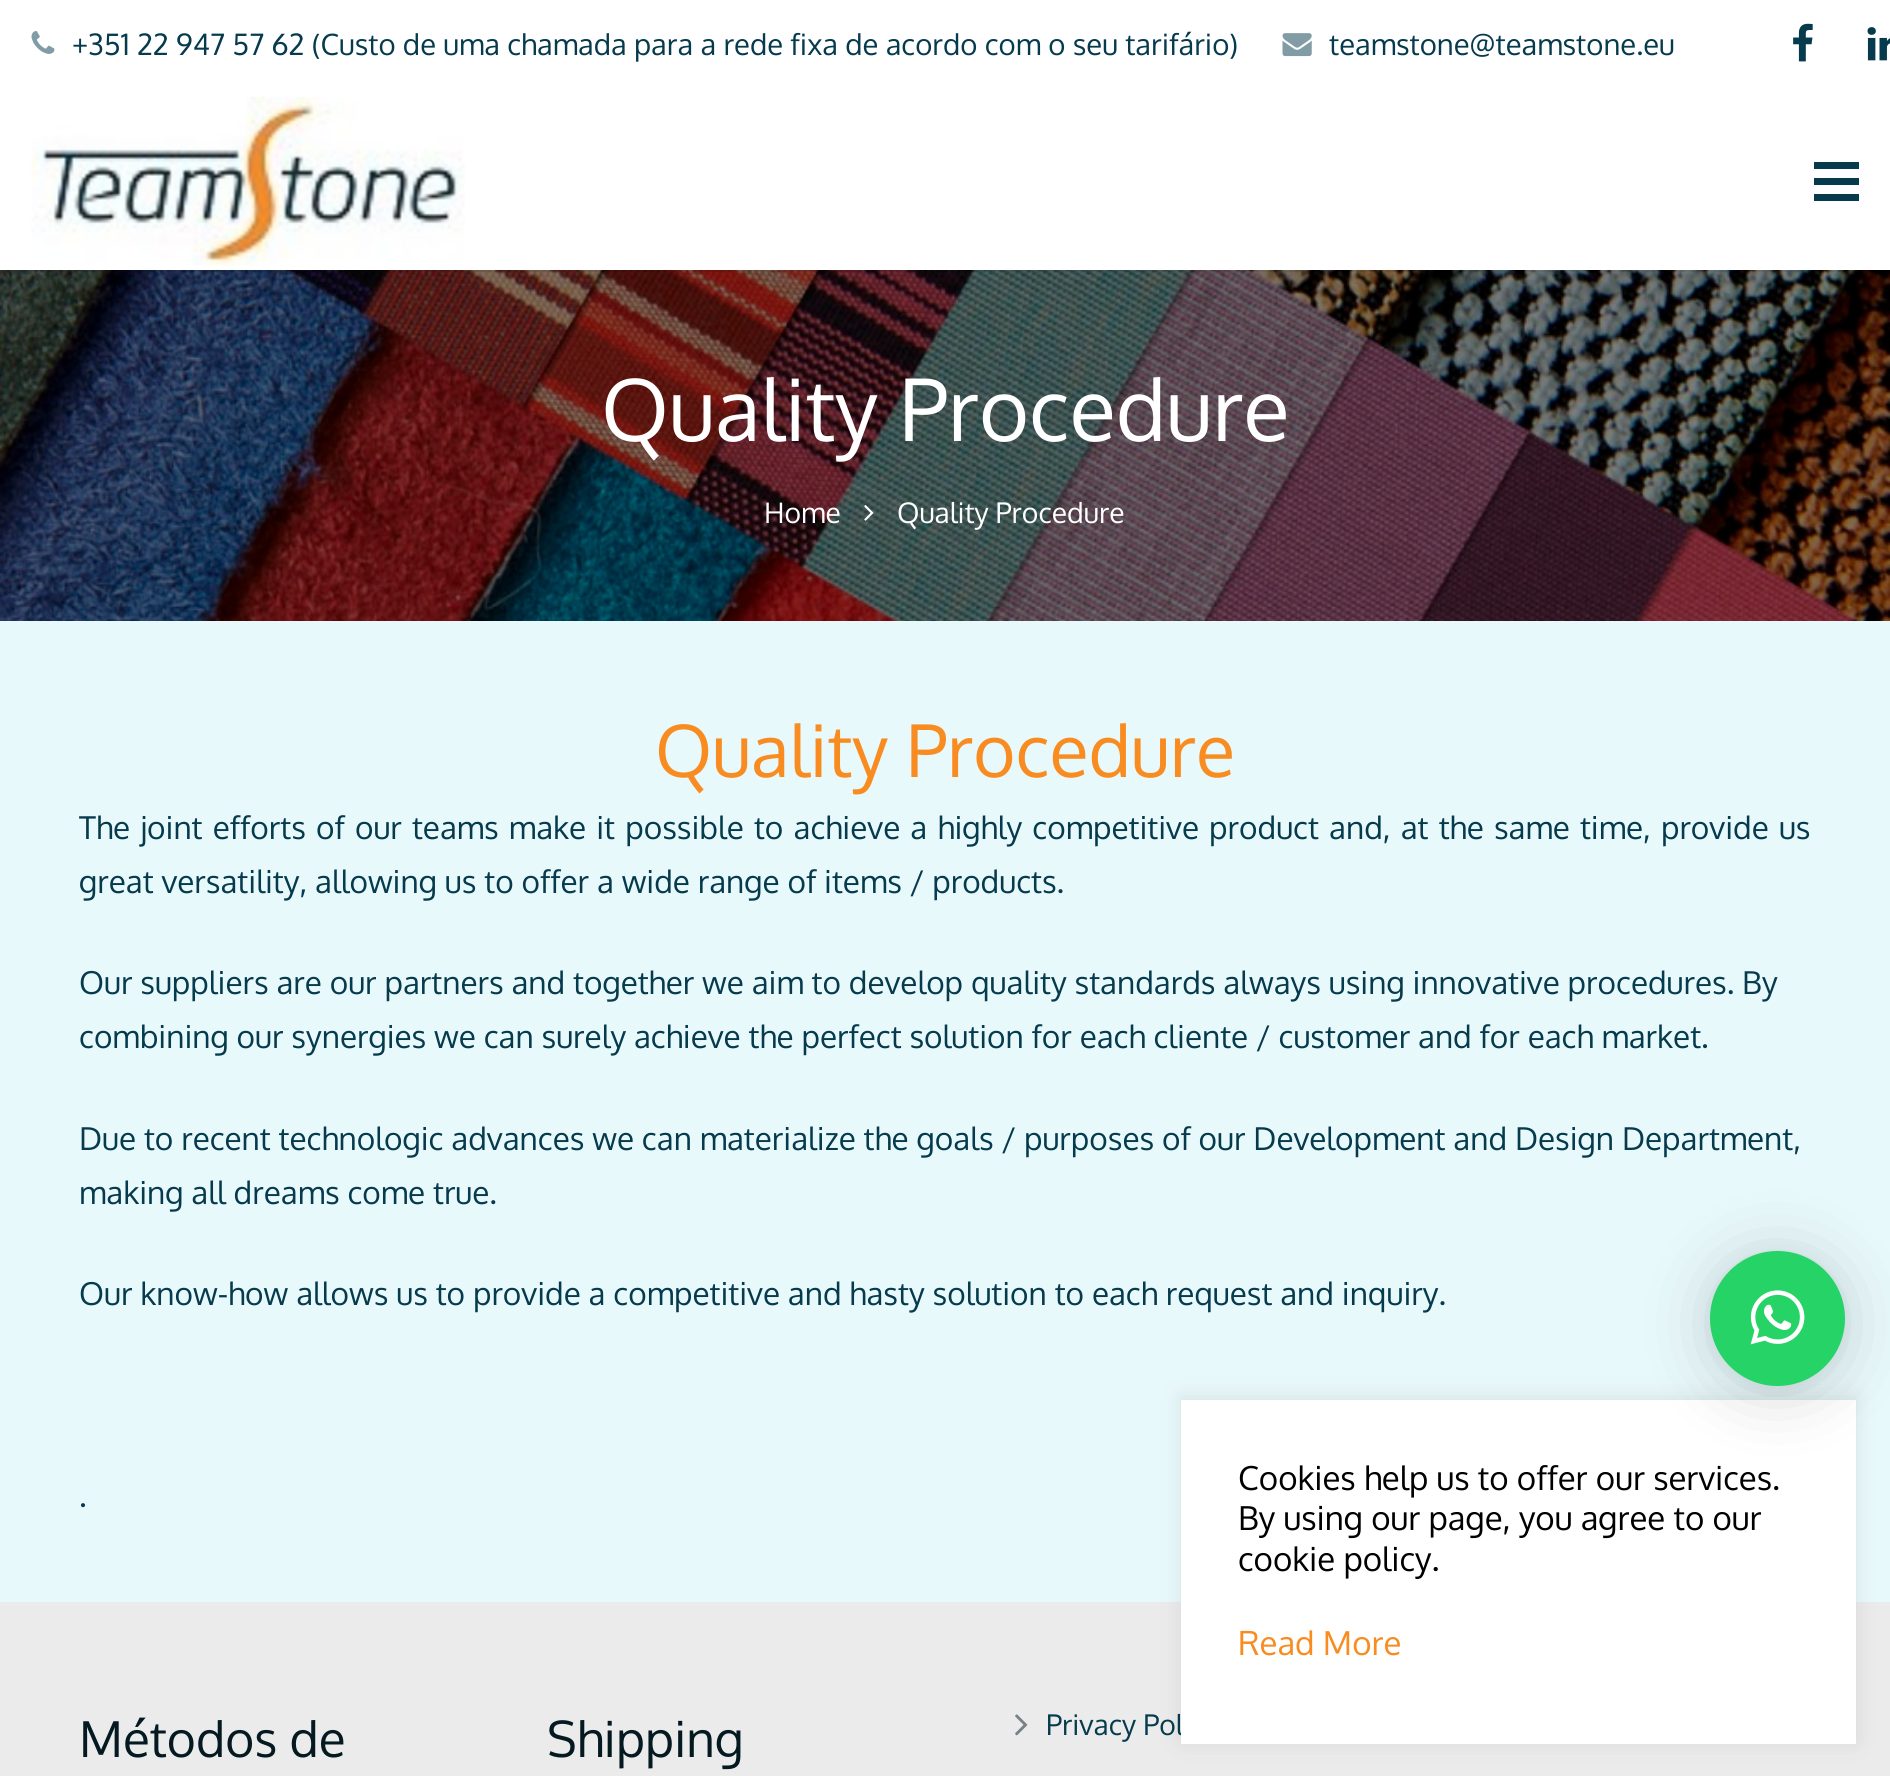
#include <cairo/cairo.h>
#include <math.h>
#include <stddef.h>


static void draw_spaced(cairo_t *cr, double x, double y, const char *s, double letter, double word) {
  cairo_move_to(cr, x, y);
  while (*s) {
    char ch[5] = {0};
    int n = 0;
    do ch[n++] = *s++; while ((*s & 0xC0) == 0x80);
    cairo_show_text(cr, ch);
    cairo_rel_move_to(cr, letter + word * (*ch == ' '), 0);
  }
}

static void rounded_rect(cairo_t *cr, double x, double y, double w, double h, double r) {
  cairo_new_sub_path(cr);
  cairo_arc(cr, x + w - r, y + h - r, r, 0, M_PI / 2);
  cairo_arc(cr, x + r, y + h - r, r, M_PI / 2, M_PI);
  cairo_arc(cr, x + r, y + r, r, M_PI, 1.5 * M_PI);
  cairo_arc(cr, x + w - r, y + r, r, 1.5 * M_PI, 2 * M_PI);
  cairo_close_path(cr);
}

static void draw_shadow(cairo_t *cr, double x, double y, double w, double h, double r, double blur, double alpha) {
  cairo_push_group_with_content(cr, CAIRO_CONTENT_ALPHA);
  cairo_set_operator(cr, CAIRO_OPERATOR_SOURCE);
  for (int i = 15; i >= -15 && fmin(w, h) + blur * i / 3 > 0; i -= 2) {
    double e = blur * i / 6;
    cairo_set_source_rgba(cr, 0, 0, 0, alpha * erfc((i - 1) / 8.5) / 2);
    rounded_rect(cr, x - e, y - e, w + 2 * e, h + 2 * e, fmax(0, fmin(r + e + blur * .6, fmin(w, h) / 2 + e)));
    cairo_fill(cr);
  }
  cairo_pattern_t *soft = cairo_pop_group(cr);
  cairo_mask(cr, soft);
  cairo_pattern_destroy(soft);
}

static void draw_image(cairo_t *cr, const char *path, double x, double y, double w, double h) {
  cairo_surface_t *image = cairo_image_surface_create_from_png(path);
  cairo_save(cr);
  cairo_set_source_surface(cr, image, x, y);
  cairo_rectangle(cr, x, y, w, h);
  cairo_fill(cr);
  cairo_restore(cr);
  cairo_surface_destroy(image);
}

static void draw(cairo_t *cr) {
  cairo_set_source_rgb(cr, 232 / 255.0, 249 / 255.0, 252 / 255.0);
  cairo_paint(cr);
  cairo_set_source_rgb(cr, 1, 1, 1);
  cairo_rectangle(cr, 0, 0, 1890, 270);
  cairo_fill(cr);
  draw_image(cr, "images/1.png", 31, 31, 24, 23);
  draw_image(cr, "images/2.png", 1282, 33, 30, 24);
  draw_image(cr, "images/3.png", 1793, 23, 20, 39);
  draw_image(cr, "images/4.png", 1867, 27, 23, 34);
  draw_image(cr, "images/6.png", 0, 270, 1890, 351);
  cairo_set_source_rgba(cr, 0, 0, 0, 0.08);
  cairo_rectangle(cr, 0, 270, 1867, 2);
  cairo_fill(cr);
  draw_image(cr, "images/5.png", 31, 96, 434, 170);
  cairo_set_source_rgb(cr, 6 / 255.0, 58 / 255.0, 77 / 255.0);
  cairo_rectangle(cr, 1814, 178, 45, 7);
  cairo_fill(cr);
  cairo_rectangle(cr, 1814, 162, 45, 7);
  cairo_fill(cr);
  cairo_rectangle(cr, 1814, 194, 45, 7);
  cairo_fill(cr);
  draw_image(cr, "images/7.png", 864, 505, 10, 16);
  cairo_set_source_rgb(cr, 235 / 255.0, 235 / 255.0, 235 / 255.0);
  cairo_rectangle(cr, 0, 1602, 1890, 174);
  cairo_fill(cr);
  cairo_set_source_rgb(cr, 172 / 255.0, 171 / 255.0, 171 / 255.0);
  draw_shadow(cr, 1181, 1397, 675, 345, 0, 11, 0.3);
  draw_image(cr, "images/9.png", 1015, 1714, 13, 22);
  cairo_select_font_face(cr, "Oxygen", CAIRO_FONT_SLANT_NORMAL, CAIRO_FONT_WEIGHT_NORMAL);
  cairo_set_font_size(cr, 29.25);
  cairo_set_source_rgb(cr, 6 / 255.0, 58 / 255.0, 77 / 255.0);
  cairo_move_to(cr, 72, 55);
  cairo_show_text(cr, "+351 22 947 57 62 (Custo de uma chamada para a rede fixa de acordo com o seu tarifário)");
  cairo_move_to(cr, 1329, 55);
  cairo_show_text(cr, "teamstone@teamstone.eu");
  cairo_set_font_size(cr, 85.5);
  cairo_set_source_rgb(cr, 1, 1, 1);
  cairo_move_to(cr, 601, 441);
  cairo_show_text(cr, "Quality Procedure");
  cairo_set_font_size(cr, 28.25);
  cairo_move_to(cr, 764, 523);
  cairo_show_text(cr, "Home");
  cairo_move_to(cr, 897, 523);
  cairo_show_text(cr, "Quality Procedure");
  cairo_set_font_size(cr, 72);
  cairo_set_source_rgb(cr, 248 / 255.0, 140 / 255.0, 33 / 255.0);
  cairo_move_to(cr, 655, 777);
  cairo_show_text(cr, "Quality Procedure");
  cairo_set_font_size(cr, 31.5);
  cairo_set_source_rgb(cr, 6 / 255.0, 58 / 255.0, 77 / 255.0);
  draw_spaced(cr, 79, 839, "The joint efforts of our teams make it possible to achieve a highly competitive product and, at the same time, provide us", 0, 2.3);
  cairo_move_to(cr, 79, 893);
  cairo_show_text(cr, "great versatility, allowing us to offer a wide range of items / products.");
  cairo_move_to(cr, 79, 994);
  cairo_show_text(cr, "Our suppliers are our partners and together we aim to develop quality standards always using innovative procedures. By");
  cairo_move_to(cr, 79, 1048);
  cairo_show_text(cr, "combining our synergies we can surely achieve the perfect solution for each cliente / customer and for each market.");
  cairo_move_to(cr, 79, 1150);
  cairo_show_text(cr, "Due to recent technologic advances we can materialize the goals / purposes of our Development and Design Department,");
  cairo_move_to(cr, 79, 1204);
  cairo_show_text(cr, "making all dreams come true.");
  cairo_move_to(cr, 79, 1305);
  cairo_show_text(cr, "Our know-how allows us to provide a competitive and hasty solution to each request and inquiry.");
  cairo_move_to(cr, 79, 1507);
  cairo_show_text(cr, ".");
  cairo_set_font_size(cr, 49.5);
  cairo_set_source_rgb(cr, 5 / 255.0, 25 / 255.0, 33 / 255.0);
  cairo_move_to(cr, 79, 1757);
  cairo_show_text(cr, "Métodos de");
  cairo_move_to(cr, 547, 1757);
  cairo_show_text(cr, "Shipping");
  cairo_set_font_size(cr, 28.25);
  cairo_set_source_rgb(cr, 6 / 255.0, 58 / 255.0, 77 / 255.0);
  cairo_move_to(cr, 1046, 1735);
  cairo_show_text(cr, "Privacy Pol");
  cairo_set_source_rgb(cr, 1, 1, 1);
  cairo_rectangle(cr, 1181, 1400, 675, 344);
  cairo_fill(cr);
  cairo_set_source_rgb(cr, 0, 0, 0);
  draw_shadow(cr, 1710, 1253, 135, 135, 67.5, 7, 0.06);
  draw_shadow(cr, 1710, 1256, 135, 135, 67.5, 36, 0.16);
  cairo_set_source_rgb(cr, 37 / 255.0, 211 / 255.0, 102 / 255.0);
  cairo_arc(cr, 1777.5, 1318.5, 67.5, 0, 2 * M_PI);
  cairo_fill(cr);
  draw_image(cr, "images/8.png", 1750, 1290, 55, 55);
  cairo_set_font_size(cr, 33);
  cairo_set_source_rgb(cr, 248 / 255.0, 140 / 255.0, 33 / 255.0);
  cairo_move_to(cr, 1238, 1655);
  cairo_show_text(cr, "Read More");
  cairo_set_source_rgb(cr, 0, 0, 0);
  cairo_move_to(cr, 1238, 1571);
  cairo_show_text(cr, "cookie policy.");
  cairo_move_to(cr, 1238, 1530);
  cairo_show_text(cr, "By using our page, you agree to our");
  cairo_move_to(cr, 1238, 1490);
  cairo_show_text(cr, "Cookies help us to offer our services.");
}

int main(void) {
  cairo_surface_t *surface = cairo_image_surface_create(CAIRO_FORMAT_RGB24, 1890, 1776);
  cairo_t *cr = cairo_create(surface);
  cairo_font_options_t *options = cairo_font_options_create();
  cairo_font_options_set_hint_metrics(options, CAIRO_HINT_METRICS_OFF);
  cairo_font_options_set_hint_style(options, CAIRO_HINT_STYLE_NONE);
  cairo_set_font_options(cr, options);
  cairo_set_miter_limit(cr, 4);
  draw(cr);
  cairo_surface_write_to_png(surface, "out.png");
  cairo_font_options_destroy(options);
  cairo_destroy(cr);
  cairo_surface_destroy(surface);
  return 0;
}
